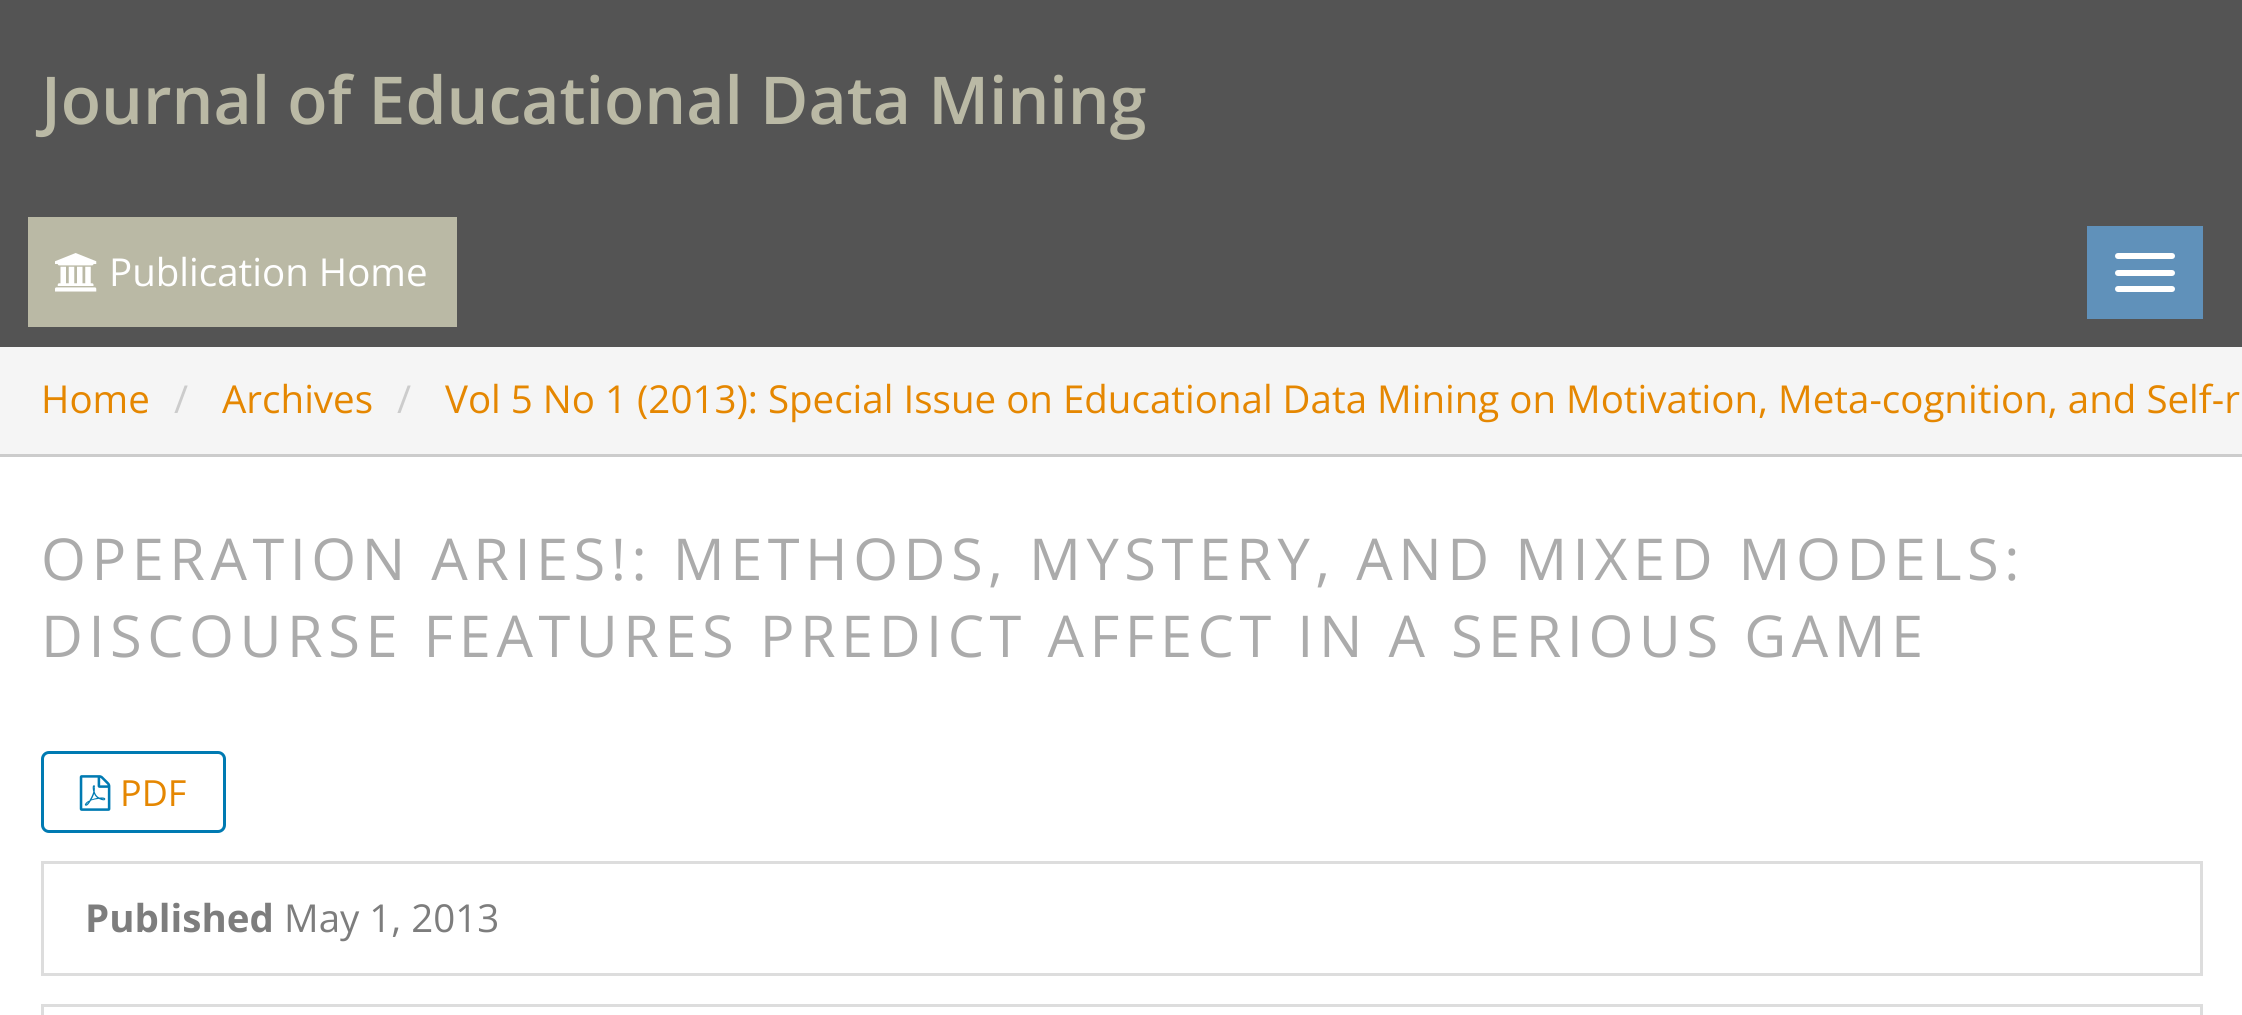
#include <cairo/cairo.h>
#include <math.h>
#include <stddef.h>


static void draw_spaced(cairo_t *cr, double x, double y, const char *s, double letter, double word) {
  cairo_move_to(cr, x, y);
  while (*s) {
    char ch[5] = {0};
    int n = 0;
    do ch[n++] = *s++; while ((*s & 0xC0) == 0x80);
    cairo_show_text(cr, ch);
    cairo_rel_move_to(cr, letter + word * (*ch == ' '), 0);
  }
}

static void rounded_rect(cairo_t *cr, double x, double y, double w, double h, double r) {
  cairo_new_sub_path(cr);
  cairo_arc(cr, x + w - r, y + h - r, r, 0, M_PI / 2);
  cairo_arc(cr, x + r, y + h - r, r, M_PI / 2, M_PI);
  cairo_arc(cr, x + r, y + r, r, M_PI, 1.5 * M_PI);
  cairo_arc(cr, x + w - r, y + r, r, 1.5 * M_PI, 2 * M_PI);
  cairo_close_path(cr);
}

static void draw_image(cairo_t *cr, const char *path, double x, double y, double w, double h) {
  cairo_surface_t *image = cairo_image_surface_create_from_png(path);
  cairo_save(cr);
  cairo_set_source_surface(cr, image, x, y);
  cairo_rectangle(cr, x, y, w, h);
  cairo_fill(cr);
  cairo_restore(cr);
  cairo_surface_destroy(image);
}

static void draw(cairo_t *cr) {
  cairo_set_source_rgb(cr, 1, 1, 1);
  cairo_paint(cr);
  cairo_set_source_rgb(cr, 84 / 255.0, 84 / 255.0, 84 / 255.0);
  cairo_rectangle(cr, 0, 0, 2242, 347);
  cairo_fill(cr);
  cairo_set_source_rgb(cr, 186 / 255.0, 185 / 255.0, 165 / 255.0);
  cairo_rectangle(cr, 28, 217, 429, 110);
  cairo_fill(cr);
  draw_image(cr, "images/1.png", 55, 253, 42, 39);
  cairo_set_source_rgb(cr, 96 / 255.0, 145 / 255.0, 186 / 255.0);
  cairo_rectangle(cr, 2087, 226, 116, 93);
  cairo_fill(cr);
  cairo_set_source_rgb(cr, 1, 1, 1);
  rounded_rect(cr, 2115, 253, 60, 6, 3);
  cairo_fill(cr);
  rounded_rect(cr, 2115, 270, 60, 6, 3);
  cairo_fill(cr);
  rounded_rect(cr, 2115, 286, 60, 6, 3);
  cairo_fill(cr);
  cairo_set_source_rgb(cr, 245 / 255.0, 245 / 255.0, 245 / 255.0);
  cairo_rectangle(cr, 0, 347, 2242, 107);
  cairo_fill(cr);
  cairo_set_source_rgb(cr, 204 / 255.0, 204 / 255.0, 204 / 255.0);
  cairo_rectangle(cr, 0, 454, 2242, 3);
  cairo_fill(cr);
  rounded_rect(cr, 42.5, 752.5, 182, 79, 6.5);
  cairo_set_source_rgb(cr, 0, 122 / 255.0, 178 / 255.0);
  cairo_set_line_width(cr, 3);
  cairo_stroke(cr);
  draw_image(cr, "images/2.png", 79, 775, 32, 36);
  cairo_rectangle(cr, 42.5, 862.5, 2159, 112);
  cairo_set_source_rgb(cr, 221 / 255.0, 221 / 255.0, 221 / 255.0);
  cairo_stroke(cr);
  cairo_rectangle(cr, 42.5, 1005.5, 2159, 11);
  cairo_stroke(cr);
  cairo_select_font_face(cr, "Open Sans SemiBold", CAIRO_FONT_SLANT_NORMAL, CAIRO_FONT_WEIGHT_NORMAL);
  cairo_set_font_size(cr, 66);
  cairo_set_source_rgb(cr, 186 / 255.0, 185 / 255.0, 165 / 255.0);
  cairo_move_to(cr, 41, 124);
  cairo_show_text(cr, "Journal of Educational Data Mining");
  cairo_select_font_face(cr, "Open Sans", CAIRO_FONT_SLANT_NORMAL, CAIRO_FONT_WEIGHT_NORMAL);
  cairo_set_font_size(cr, 38.5);
  cairo_set_source_rgb(cr, 1, 1, 1);
  cairo_move_to(cr, 109, 286);
  cairo_show_text(cr, "Publication Home");
  cairo_set_source_rgb(cr, 229 / 255.0, 135 / 255.0, 1 / 255.0);
  cairo_move_to(cr, 41, 413);
  cairo_show_text(cr, "Home");
  cairo_set_source_rgb(cr, 204 / 255.0, 204 / 255.0, 204 / 255.0);
  cairo_move_to(cr, 174, 413);
  cairo_show_text(cr, "/");
  cairo_set_source_rgb(cr, 229 / 255.0, 135 / 255.0, 1 / 255.0);
  cairo_move_to(cr, 222, 413);
  cairo_show_text(cr, "Archives");
  cairo_set_source_rgb(cr, 204 / 255.0, 204 / 255.0, 204 / 255.0);
  cairo_move_to(cr, 397, 413);
  cairo_show_text(cr, "/");
  cairo_set_source_rgb(cr, 229 / 255.0, 135 / 255.0, 1 / 255.0);
  cairo_move_to(cr, 445, 413);
  cairo_show_text(cr, "Vol 5 No 1 (2013): Special Issue on Educational Data Mining on Motivation, Meta-cognition, and Self-r");
  cairo_set_font_size(cr, 57.75);
  cairo_set_source_rgb(cr, 171 / 255.0, 171 / 255.0, 171 / 255.0);
  draw_spaced(cr, 41, 580, "OPERATION ARIES!: METHODS, MYSTERY, AND MIXED MODELS:", 5.5, 0);
  draw_spaced(cr, 41, 657, "DISCOURSE FEATURES PREDICT AFFECT IN A SERIOUS GAME", 5.5, 0);
  cairo_set_font_size(cr, 36);
  cairo_set_source_rgb(cr, 229 / 255.0, 135 / 255.0, 1 / 255.0);
  cairo_move_to(cr, 120, 806);
  cairo_show_text(cr, "PDF");
  cairo_select_font_face(cr, "Open Sans", CAIRO_FONT_SLANT_NORMAL, CAIRO_FONT_WEIGHT_BOLD);
  cairo_set_font_size(cr, 38.5);
  cairo_set_source_rgb(cr, 125 / 255.0, 125 / 255.0, 125 / 255.0);
  cairo_move_to(cr, 85, 932);
  cairo_show_text(cr, "Published");
  cairo_select_font_face(cr, "Open Sans", CAIRO_FONT_SLANT_NORMAL, CAIRO_FONT_WEIGHT_NORMAL);
  cairo_move_to(cr, 284, 932);
  cairo_show_text(cr, "May 1, 2013");
}

int main(void) {
  cairo_surface_t *surface = cairo_image_surface_create(CAIRO_FORMAT_RGB24, 2242, 1015);
  cairo_t *cr = cairo_create(surface);
  cairo_font_options_t *options = cairo_font_options_create();
  cairo_font_options_set_hint_metrics(options, CAIRO_HINT_METRICS_OFF);
  cairo_font_options_set_hint_style(options, CAIRO_HINT_STYLE_NONE);
  cairo_set_font_options(cr, options);
  cairo_set_miter_limit(cr, 4);
  draw(cr);
  cairo_surface_write_to_png(surface, "out.png");
  cairo_font_options_destroy(options);
  cairo_destroy(cr);
  cairo_surface_destroy(surface);
  return 0;
}
